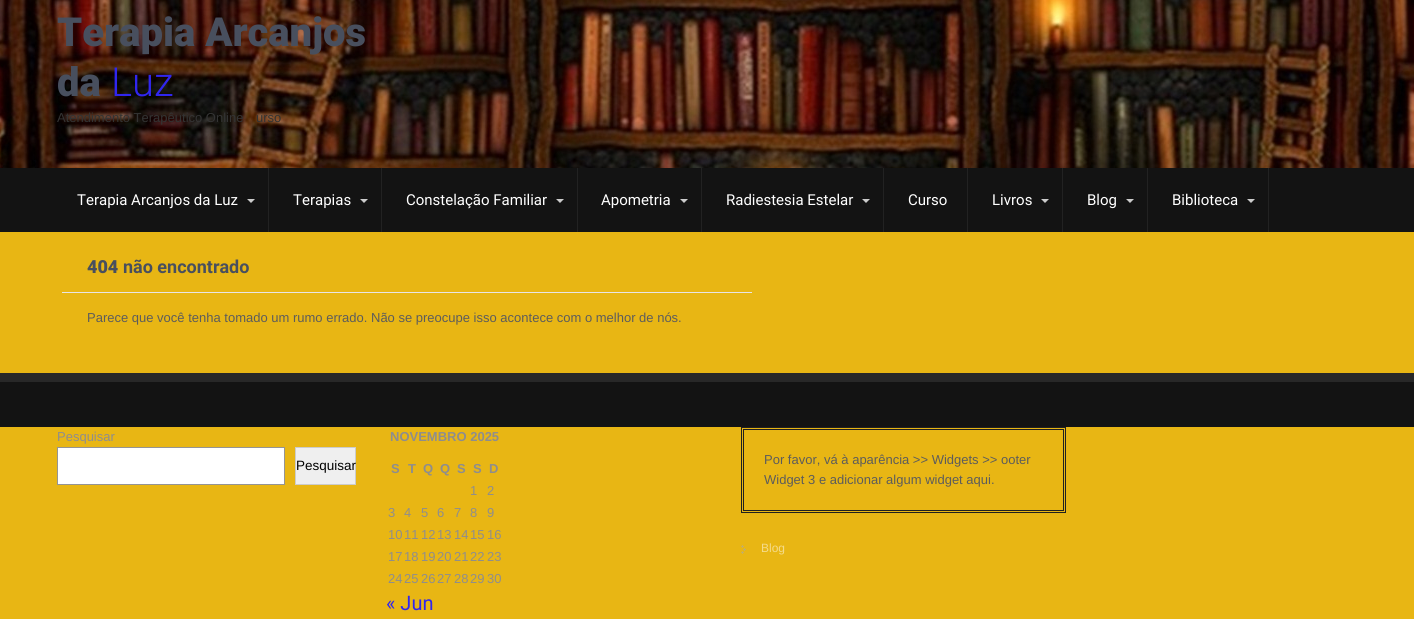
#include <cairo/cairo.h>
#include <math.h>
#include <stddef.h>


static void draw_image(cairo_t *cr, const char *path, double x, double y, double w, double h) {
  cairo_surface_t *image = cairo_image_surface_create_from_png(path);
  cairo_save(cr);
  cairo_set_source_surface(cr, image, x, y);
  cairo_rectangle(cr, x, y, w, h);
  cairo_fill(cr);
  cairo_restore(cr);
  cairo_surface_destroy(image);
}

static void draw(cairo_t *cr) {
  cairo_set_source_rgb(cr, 232 / 255.0, 182 / 255.0, 20 / 255.0);
  cairo_paint(cr);
  draw_image(cr, "images/1.png", 0, 0, 1414, 168);
  cairo_set_source_rgb(cr, 19 / 255.0, 19 / 255.0, 19 / 255.0);
  cairo_rectangle(cr, 0, 168, 1414, 64);
  cairo_fill(cr);
  cairo_set_source_rgb(cr, 34 / 255.0, 34 / 255.0, 34 / 255.0);
  cairo_rectangle(cr, 268, 168, 1, 64);
  cairo_fill(cr);
  cairo_set_source_rgb(cr, 204 / 255.0, 204 / 255.0, 204 / 255.0);
  cairo_new_path(cr);
  cairo_move_to(cr, 247, 199);
  cairo_line_to(cr, 255, 199);
  cairo_line_to(cr, 251, 203);
  cairo_close_path(cr);
  cairo_fill(cr);
  cairo_set_source_rgb(cr, 34 / 255.0, 34 / 255.0, 34 / 255.0);
  cairo_rectangle(cr, 381, 168, 1, 64);
  cairo_fill(cr);
  cairo_set_source_rgb(cr, 204 / 255.0, 204 / 255.0, 204 / 255.0);
  cairo_new_path(cr);
  cairo_move_to(cr, 360, 199);
  cairo_line_to(cr, 368, 199);
  cairo_line_to(cr, 364, 203);
  cairo_close_path(cr);
  cairo_fill(cr);
  cairo_set_source_rgb(cr, 34 / 255.0, 34 / 255.0, 34 / 255.0);
  cairo_rectangle(cr, 577, 168, 1, 64);
  cairo_fill(cr);
  cairo_set_source_rgb(cr, 204 / 255.0, 204 / 255.0, 204 / 255.0);
  cairo_new_path(cr);
  cairo_move_to(cr, 556, 199);
  cairo_line_to(cr, 564, 199);
  cairo_line_to(cr, 560, 203);
  cairo_close_path(cr);
  cairo_fill(cr);
  cairo_set_source_rgb(cr, 34 / 255.0, 34 / 255.0, 34 / 255.0);
  cairo_rectangle(cr, 701, 168, 1, 64);
  cairo_fill(cr);
  cairo_set_source_rgb(cr, 204 / 255.0, 204 / 255.0, 204 / 255.0);
  cairo_new_path(cr);
  cairo_move_to(cr, 680, 199);
  cairo_line_to(cr, 688, 199);
  cairo_line_to(cr, 684, 203);
  cairo_close_path(cr);
  cairo_fill(cr);
  cairo_set_source_rgb(cr, 34 / 255.0, 34 / 255.0, 34 / 255.0);
  cairo_rectangle(cr, 883, 168, 1, 64);
  cairo_fill(cr);
  cairo_set_source_rgb(cr, 204 / 255.0, 204 / 255.0, 204 / 255.0);
  cairo_new_path(cr);
  cairo_move_to(cr, 862, 199);
  cairo_line_to(cr, 870, 199);
  cairo_line_to(cr, 866, 203);
  cairo_close_path(cr);
  cairo_fill(cr);
  cairo_set_source_rgb(cr, 34 / 255.0, 34 / 255.0, 34 / 255.0);
  cairo_rectangle(cr, 967, 168, 1, 64);
  cairo_fill(cr);
  cairo_rectangle(cr, 1062, 168, 1, 64);
  cairo_fill(cr);
  cairo_set_source_rgb(cr, 204 / 255.0, 204 / 255.0, 204 / 255.0);
  cairo_new_path(cr);
  cairo_move_to(cr, 1041, 199);
  cairo_line_to(cr, 1049, 199);
  cairo_line_to(cr, 1045, 203);
  cairo_close_path(cr);
  cairo_fill(cr);
  cairo_set_source_rgb(cr, 34 / 255.0, 34 / 255.0, 34 / 255.0);
  cairo_rectangle(cr, 1147, 168, 1, 64);
  cairo_fill(cr);
  cairo_set_source_rgb(cr, 204 / 255.0, 204 / 255.0, 204 / 255.0);
  cairo_new_path(cr);
  cairo_move_to(cr, 1126, 199);
  cairo_line_to(cr, 1134, 199);
  cairo_line_to(cr, 1130, 203);
  cairo_close_path(cr);
  cairo_fill(cr);
  cairo_set_source_rgb(cr, 34 / 255.0, 34 / 255.0, 34 / 255.0);
  cairo_rectangle(cr, 1268, 168, 1, 64);
  cairo_fill(cr);
  cairo_set_source_rgb(cr, 204 / 255.0, 204 / 255.0, 204 / 255.0);
  cairo_new_path(cr);
  cairo_move_to(cr, 1247, 199);
  cairo_line_to(cr, 1255, 199);
  cairo_line_to(cr, 1251, 203);
  cairo_close_path(cr);
  cairo_fill(cr);
  cairo_set_source_rgb(cr, 232 / 255.0, 230 / 255.0, 230 / 255.0);
  cairo_rectangle(cr, 62, 292, 690, 1);
  cairo_fill(cr);
  cairo_set_source_rgb(cr, 19 / 255.0, 19 / 255.0, 19 / 255.0);
  cairo_rectangle(cr, 0, 382, 1414, 45);
  cairo_fill(cr);
  cairo_set_source_rgb(cr, 40 / 255.0, 40 / 255.0, 40 / 255.0);
  cairo_rectangle(cr, 0, 373, 1414, 9);
  cairo_fill(cr);
  cairo_set_source_rgb(cr, 1, 1, 1);
  cairo_rectangle(cr, 57.5, 447.5, 227, 37);
  cairo_fill_preserve(cr);
  cairo_set_source_rgb(cr, 148 / 255.0, 148 / 255.0, 148 / 255.0);
  cairo_set_line_width(cr, 1);
  cairo_stroke(cr);
  cairo_set_source_rgb(cr, 239 / 255.0, 239 / 255.0, 239 / 255.0);
  cairo_rectangle(cr, 295.5, 447.5, 60, 37);
  cairo_fill_preserve(cr);
  cairo_set_source_rgb(cr, 204 / 255.0, 204 / 255.0, 204 / 255.0);
  cairo_stroke(cr);
  cairo_rectangle(cr, 741.5, 427.5, 324, 85);
  cairo_set_source_rgb(cr, 32 / 255.0, 32 / 255.0, 32 / 255.0);
  cairo_stroke(cr);
  cairo_rectangle(cr, 743.5, 429.5, 320, 81);
  cairo_stroke(cr);
  draw_image(cr, "images/2.png", 741, 545, 5, 9);
  cairo_select_font_face(cr, "Roboto Black", CAIRO_FONT_SLANT_NORMAL, CAIRO_FONT_WEIGHT_NORMAL);
  cairo_set_font_size(cr, 40);
  cairo_set_source_rgb(cr, 72 / 255.0, 79 / 255.0, 94 / 255.0);
  cairo_move_to(cr, 57, 46);
  cairo_show_text(cr, "Terapia Arcanjos");
  cairo_move_to(cr, 57, 96);
  cairo_show_text(cr, "da");
  cairo_select_font_face(cr, "Roboto Light", CAIRO_FONT_SLANT_NORMAL, CAIRO_FONT_WEIGHT_NORMAL);
  cairo_set_source_rgb(cr, 48 / 255.0, 38 / 255.0, 239 / 255.0);
  cairo_move_to(cr, 111, 96);
  cairo_show_text(cr, "Luz");
  cairo_select_font_face(cr, "Liberation Sans", CAIRO_FONT_SLANT_NORMAL, CAIRO_FONT_WEIGHT_NORMAL);
  cairo_set_font_size(cr, 13);
  cairo_set_source_rgb(cr, 51 / 255.0, 51 / 255.0, 51 / 255.0);
  cairo_move_to(cr, 57, 122);
  cairo_show_text(cr, "Atendimento Terapêutico Online");
  cairo_move_to(cr, 256, 122);
  cairo_show_text(cr, "urso");
  cairo_select_font_face(cr, "Roboto", CAIRO_FONT_SLANT_NORMAL, CAIRO_FONT_WEIGHT_NORMAL);
  cairo_set_font_size(cr, 15);
  cairo_set_source_rgb(cr, 1, 1, 1);
  cairo_move_to(cr, 77, 205);
  cairo_show_text(cr, "Terapia Arcanjos da Luz");
  cairo_move_to(cr, 293, 205);
  cairo_show_text(cr, "Terapias");
  cairo_move_to(cr, 406, 205);
  cairo_show_text(cr, "Constelação Familiar");
  cairo_move_to(cr, 601, 205);
  cairo_show_text(cr, "Apometria");
  cairo_move_to(cr, 726, 205);
  cairo_show_text(cr, "Radiestesia Estelar");
  cairo_move_to(cr, 908, 205);
  cairo_show_text(cr, "Curso");
  cairo_move_to(cr, 992, 205);
  cairo_show_text(cr, "Livros");
  cairo_move_to(cr, 1087, 205);
  cairo_show_text(cr, "Blog");
  cairo_move_to(cr, 1172, 205);
  cairo_show_text(cr, "Biblioteca");
  cairo_select_font_face(cr, "Roboto Black", CAIRO_FONT_SLANT_NORMAL, CAIRO_FONT_WEIGHT_NORMAL);
  cairo_set_font_size(cr, 18);
  cairo_set_source_rgb(cr, 72 / 255.0, 79 / 255.0, 94 / 255.0);
  cairo_move_to(cr, 87, 273);
  cairo_show_text(cr, "404");
  cairo_select_font_face(cr, "Roboto", CAIRO_FONT_SLANT_NORMAL, CAIRO_FONT_WEIGHT_BOLD);
  cairo_move_to(cr, 123, 273);
  cairo_show_text(cr, "não encontrado");
  cairo_select_font_face(cr, "Liberation Sans", CAIRO_FONT_SLANT_NORMAL, CAIRO_FONT_WEIGHT_NORMAL);
  cairo_set_font_size(cr, 13);
  cairo_set_source_rgb(cr, 92 / 255.0, 92 / 255.0, 92 / 255.0);
  cairo_move_to(cr, 87, 322);
  cairo_show_text(cr, "Parece que você tenha tomado um rumo errado. Não se preocupe isso acontece com o melhor de nós.");
  cairo_set_source_rgb(cr, 142 / 255.0, 141 / 255.0, 141 / 255.0);
  cairo_move_to(cr, 57, 441);
  cairo_show_text(cr, "Pesquisar");
  cairo_set_font_size(cr, 13.5);
  cairo_set_source_rgb(cr, 0, 0, 0);
  cairo_move_to(cr, 296, 470);
  cairo_show_text(cr, "Pesquisar");
  cairo_select_font_face(cr, "Liberation Sans", CAIRO_FONT_SLANT_NORMAL, CAIRO_FONT_WEIGHT_BOLD);
  cairo_set_font_size(cr, 13);
  cairo_set_source_rgb(cr, 142 / 255.0, 141 / 255.0, 141 / 255.0);
  cairo_move_to(cr, 390, 441);
  cairo_show_text(cr, "NOVEMBRO 2025");
  cairo_move_to(cr, 391, 473);
  cairo_show_text(cr, "S");
  cairo_move_to(cr, 408, 473);
  cairo_show_text(cr, "T");
  cairo_move_to(cr, 423, 473);
  cairo_show_text(cr, "Q");
  cairo_move_to(cr, 440, 473);
  cairo_show_text(cr, "Q");
  cairo_move_to(cr, 457, 473);
  cairo_show_text(cr, "S");
  cairo_move_to(cr, 473, 473);
  cairo_show_text(cr, "S");
  cairo_move_to(cr, 489, 473);
  cairo_show_text(cr, "D");
  cairo_select_font_face(cr, "Liberation Sans", CAIRO_FONT_SLANT_NORMAL, CAIRO_FONT_WEIGHT_NORMAL);
  cairo_move_to(cr, 470, 495);
  cairo_show_text(cr, "1");
  cairo_move_to(cr, 487, 495);
  cairo_show_text(cr, "2");
  cairo_move_to(cr, 388, 517);
  cairo_show_text(cr, "3");
  cairo_move_to(cr, 404, 517);
  cairo_show_text(cr, "4");
  cairo_move_to(cr, 421, 517);
  cairo_show_text(cr, "5");
  cairo_move_to(cr, 437, 517);
  cairo_show_text(cr, "6");
  cairo_move_to(cr, 454, 517);
  cairo_show_text(cr, "7");
  cairo_move_to(cr, 470, 517);
  cairo_show_text(cr, "8");
  cairo_move_to(cr, 487, 517);
  cairo_show_text(cr, "9");
  cairo_move_to(cr, 388, 539);
  cairo_show_text(cr, "10");
  cairo_move_to(cr, 404, 539);
  cairo_show_text(cr, "11");
  cairo_move_to(cr, 421, 539);
  cairo_show_text(cr, "12");
  cairo_move_to(cr, 437, 539);
  cairo_show_text(cr, "13");
  cairo_move_to(cr, 454, 539);
  cairo_show_text(cr, "14");
  cairo_move_to(cr, 470, 539);
  cairo_show_text(cr, "15");
  cairo_move_to(cr, 487, 539);
  cairo_show_text(cr, "16");
  cairo_move_to(cr, 388, 561);
  cairo_show_text(cr, "17");
  cairo_move_to(cr, 404, 561);
  cairo_show_text(cr, "18");
  cairo_move_to(cr, 421, 561);
  cairo_show_text(cr, "19");
  cairo_move_to(cr, 437, 561);
  cairo_show_text(cr, "20");
  cairo_move_to(cr, 454, 561);
  cairo_show_text(cr, "21");
  cairo_move_to(cr, 470, 561);
  cairo_show_text(cr, "22");
  cairo_move_to(cr, 487, 561);
  cairo_show_text(cr, "23");
  cairo_move_to(cr, 388, 583);
  cairo_show_text(cr, "24");
  cairo_move_to(cr, 404, 583);
  cairo_show_text(cr, "25");
  cairo_move_to(cr, 421, 583);
  cairo_show_text(cr, "26");
  cairo_move_to(cr, 437, 583);
  cairo_show_text(cr, "27");
  cairo_move_to(cr, 454, 583);
  cairo_show_text(cr, "28");
  cairo_move_to(cr, 470, 583);
  cairo_show_text(cr, "29");
  cairo_move_to(cr, 487, 583);
  cairo_show_text(cr, "30");
  cairo_select_font_face(cr, "Roboto", CAIRO_FONT_SLANT_NORMAL, CAIRO_FONT_WEIGHT_NORMAL);
  cairo_set_font_size(cr, 20);
  cairo_set_source_rgb(cr, 48 / 255.0, 38 / 255.0, 239 / 255.0);
  cairo_move_to(cr, 386, 610);
  cairo_show_text(cr, "« Jun");
  cairo_select_font_face(cr, "Liberation Sans", CAIRO_FONT_SLANT_NORMAL, CAIRO_FONT_WEIGHT_NORMAL);
  cairo_set_font_size(cr, 13);
  cairo_set_source_rgb(cr, 92 / 255.0, 92 / 255.0, 92 / 255.0);
  cairo_move_to(cr, 764, 464);
  cairo_show_text(cr, "Por favor, vá à aparência >> Widgets >> ooter");
  cairo_move_to(cr, 764, 484);
  cairo_show_text(cr, "Widget 3 e adicionar algum widget aqui.");
  cairo_set_font_size(cr, 12);
  cairo_set_source_rgb(cr, 244 / 255.0, 219 / 255.0, 138 / 255.0);
  cairo_move_to(cr, 761, 552);
  cairo_show_text(cr, "Blog");
}

int main(void) {
  cairo_surface_t *surface = cairo_image_surface_create(CAIRO_FORMAT_RGB24, 1414, 619);
  cairo_t *cr = cairo_create(surface);
  cairo_font_options_t *options = cairo_font_options_create();
  cairo_font_options_set_hint_metrics(options, CAIRO_HINT_METRICS_OFF);
  cairo_font_options_set_hint_style(options, CAIRO_HINT_STYLE_NONE);
  cairo_set_font_options(cr, options);
  cairo_set_miter_limit(cr, 4);
  draw(cr);
  cairo_surface_write_to_png(surface, "out.png");
  cairo_font_options_destroy(options);
  cairo_destroy(cr);
  cairo_surface_destroy(surface);
  return 0;
}
